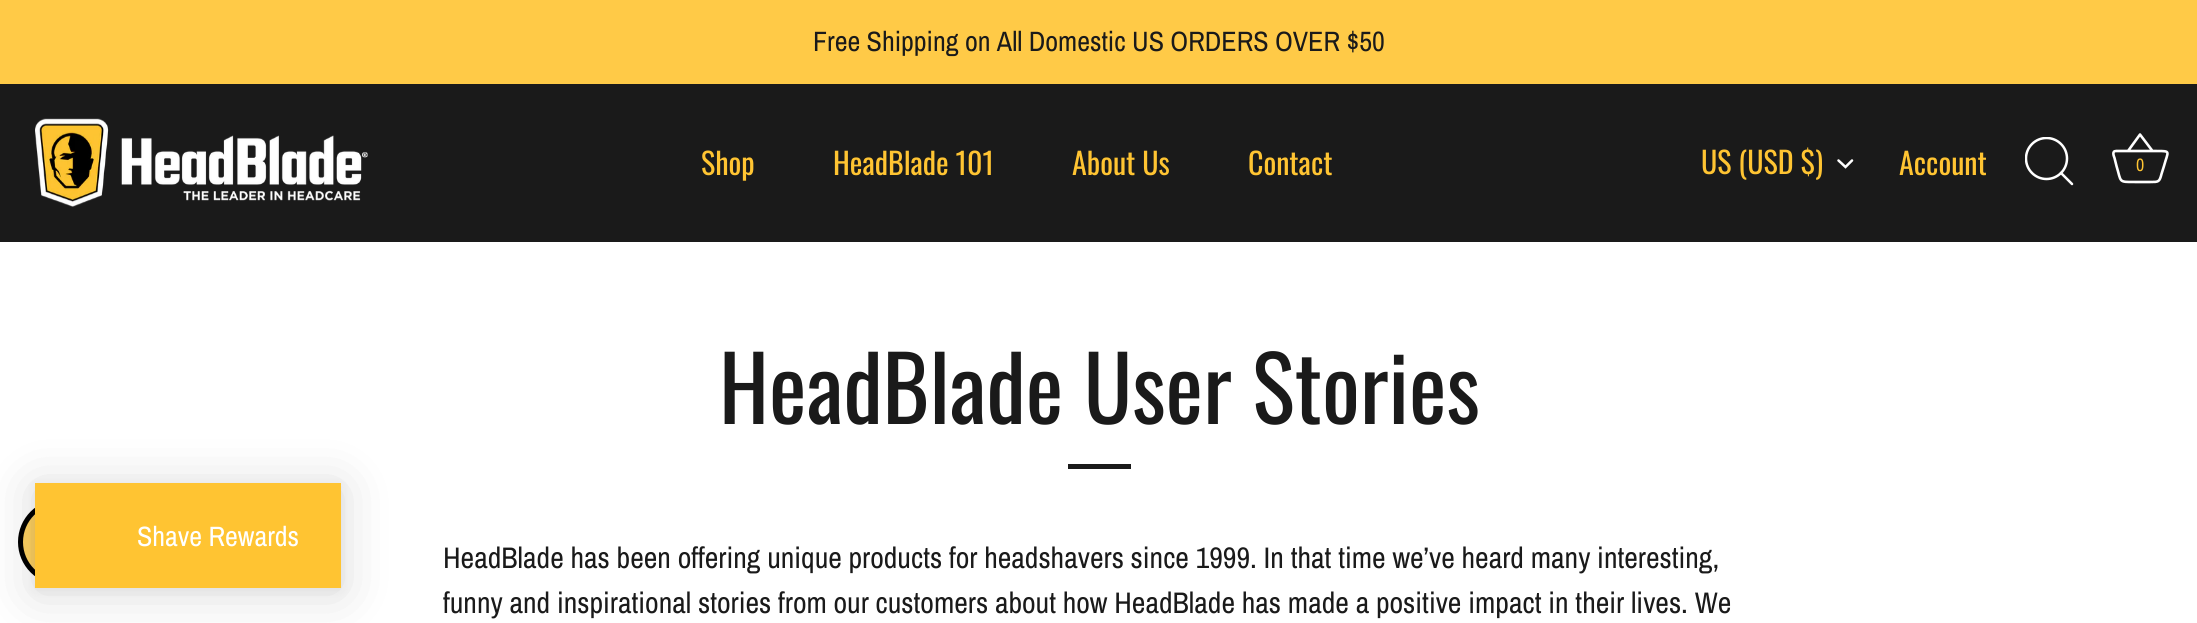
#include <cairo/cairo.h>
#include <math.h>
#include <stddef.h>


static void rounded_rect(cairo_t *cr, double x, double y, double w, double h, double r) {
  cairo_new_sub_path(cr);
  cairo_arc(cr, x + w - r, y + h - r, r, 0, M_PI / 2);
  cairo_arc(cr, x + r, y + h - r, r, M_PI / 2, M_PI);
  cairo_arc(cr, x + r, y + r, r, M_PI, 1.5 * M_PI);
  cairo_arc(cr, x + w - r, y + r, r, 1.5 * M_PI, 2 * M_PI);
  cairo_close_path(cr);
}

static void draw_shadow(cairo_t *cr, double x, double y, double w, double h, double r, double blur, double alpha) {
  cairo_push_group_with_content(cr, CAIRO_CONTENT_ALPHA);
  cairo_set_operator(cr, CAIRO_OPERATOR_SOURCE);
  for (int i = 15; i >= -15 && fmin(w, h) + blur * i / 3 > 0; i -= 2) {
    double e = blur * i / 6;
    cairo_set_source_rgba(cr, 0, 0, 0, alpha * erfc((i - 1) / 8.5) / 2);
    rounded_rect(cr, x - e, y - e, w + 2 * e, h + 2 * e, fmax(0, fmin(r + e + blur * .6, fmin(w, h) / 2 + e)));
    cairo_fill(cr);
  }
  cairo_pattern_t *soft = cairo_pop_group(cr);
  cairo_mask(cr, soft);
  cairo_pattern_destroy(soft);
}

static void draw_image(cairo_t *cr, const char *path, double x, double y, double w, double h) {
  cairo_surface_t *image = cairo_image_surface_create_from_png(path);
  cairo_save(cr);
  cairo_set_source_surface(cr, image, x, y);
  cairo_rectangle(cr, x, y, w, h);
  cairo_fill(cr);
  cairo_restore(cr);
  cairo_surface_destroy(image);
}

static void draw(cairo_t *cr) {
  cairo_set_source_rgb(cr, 1, 1, 1);
  cairo_paint(cr);
  cairo_set_source_rgb(cr, 26 / 255.0, 26 / 255.0, 26 / 255.0);
  cairo_rectangle(cr, 0, 84, 2197, 158);
  cairo_fill(cr);
  cairo_set_source_rgb(cr, 1, 202 / 255.0, 71 / 255.0);
  cairo_rectangle(cr, 0, 0, 2197, 84);
  cairo_fill(cr);
  draw_image(cr, "images/1.png", 35, 118, 333, 89);
  cairo_new_path(cr);
  cairo_move_to(cr, 1838.5, 160.5);
  cairo_line_to(cr, 1845.5, 167);
  cairo_line_to(cr, 1852, 160.5);
  cairo_set_source_rgb(cr, 1, 1, 1);
  cairo_set_line_width(cr, 2.5);
  cairo_set_line_cap(cr, CAIRO_LINE_CAP_ROUND);
  cairo_stroke(cr);
  cairo_save(cr);
  cairo_rectangle(cr, 2025, 137, 51, 50);
  cairo_clip(cr);
  cairo_arc(cr, 2046.5, 158.5, 20.5, 0, 2 * M_PI);
  cairo_set_line_cap(cr, CAIRO_LINE_CAP_BUTT);
  cairo_stroke(cr);
  cairo_restore(cr);
  cairo_new_path(cr);
  cairo_move_to(cr, 2072, 184);
  cairo_line_to(cr, 2061, 173);
  cairo_set_line_join(cr, CAIRO_LINE_JOIN_ROUND);
  cairo_stroke(cr);
  cairo_new_path(cr);
  cairo_move_to(cr, 2116, 151);
  cairo_curve_to(cr, 2111.5, 151, 2114, 156.5, 2114.5, 158);
  cairo_line_to(cr, 2116.5, 166);
  cairo_curve_to(cr, 2121.5, 182.5, 2118, 182, 2135, 182);
  cairo_line_to(cr, 2150.5, 182);
  cairo_curve_to(cr, 2158.5, 182, 2159.5, 182, 2161.5, 174);
  cairo_line_to(cr, 2164, 166);
  cairo_curve_to(cr, 2168, 151, 2171.5, 151, 2156.5, 151);
  cairo_line_to(cr, 2116, 151);
  cairo_move_to(cr, 2128, 151);
  cairo_line_to(cr, 2140, 134.5);
  cairo_line_to(cr, 2152.5, 151);
  cairo_set_line_width(cr, 2.6);
  cairo_set_line_cap(cr, CAIRO_LINE_CAP_BUTT);
  cairo_stroke(cr);
  cairo_set_source_rgb(cr, 1, 209 / 255.0, 96 / 255.0);
  rounded_rect(cr, 20.5, 501.5, 82, 81, 40.5);
  cairo_fill_preserve(cr);
  cairo_set_source_rgb(cr, 0, 0, 0);
  cairo_set_line_width(cr, 5);
  cairo_set_line_join(cr, CAIRO_LINE_JOIN_MITER);
  cairo_stroke(cr);
  cairo_set_source_rgb(cr, 0, 0, 0);
  draw_shadow(cr, 35, 487, 306, 105, 0, 26, 0.15);
  draw_shadow(cr, 35, 485, 306, 105, 0, 5, 0.05);
  cairo_set_source_rgb(cr, 1, 196 / 255.0, 50 / 255.0);
  cairo_rectangle(cr, 35, 483, 306, 105);
  cairo_fill(cr);
  cairo_set_source_rgb(cr, 26 / 255.0, 26 / 255.0, 26 / 255.0);
  cairo_rectangle(cr, 1068, 464, 63, 5);
  cairo_fill(cr);
  cairo_select_font_face(cr, "Archivo Narrow", CAIRO_FONT_SLANT_NORMAL, CAIRO_FONT_WEIGHT_NORMAL);
  cairo_set_font_size(cr, 28);
  cairo_move_to(cr, 813, 51);
  cairo_show_text(cr, "Free Shipping on All Domestic US ORDERS OVER $50");
  cairo_select_font_face(cr, "Oswald", CAIRO_FONT_SLANT_NORMAL, CAIRO_FONT_WEIGHT_NORMAL);
  cairo_set_font_size(cr, 30);
  cairo_set_source_rgb(cr, 1, 196 / 255.0, 50 / 255.0);
  cairo_move_to(cr, 701, 175);
  cairo_show_text(cr, "Shop");
  cairo_move_to(cr, 833, 175);
  cairo_show_text(cr, "HeadBlade 101");
  cairo_move_to(cr, 1072, 175);
  cairo_show_text(cr, "About Us");
  cairo_move_to(cr, 1248, 175);
  cairo_show_text(cr, "Contact");
  cairo_move_to(cr, 1701, 174);
  cairo_show_text(cr, "US (USD $)");
  cairo_move_to(cr, 1899, 175);
  cairo_show_text(cr, "Account");
  cairo_select_font_face(cr, "Archivo Narrow", CAIRO_FONT_SLANT_NORMAL, CAIRO_FONT_WEIGHT_NORMAL);
  cairo_set_font_size(cr, 18);
  cairo_move_to(cr, 2136, 171);
  cairo_show_text(cr, "0");
  cairo_set_font_size(cr, 28);
  cairo_set_source_rgb(cr, 1, 1, 1);
  cairo_move_to(cr, 137, 546);
  cairo_show_text(cr, "Shave Rewards");
  cairo_select_font_face(cr, "Oswald", CAIRO_FONT_SLANT_NORMAL, CAIRO_FONT_WEIGHT_NORMAL);
  cairo_set_font_size(cr, 89.25);
  cairo_set_source_rgb(cr, 26 / 255.0, 26 / 255.0, 26 / 255.0);
  cairo_move_to(cr, 719, 424);
  cairo_show_text(cr, "HeadBlade User Stories");
  cairo_select_font_face(cr, "Archivo Narrow", CAIRO_FONT_SLANT_NORMAL, CAIRO_FONT_WEIGHT_NORMAL);
  cairo_set_font_size(cr, 29.75);
  cairo_move_to(cr, 443, 568);
  cairo_show_text(cr, "HeadBlade has been offering unique products for headshavers since 1999. In that time we’ve heard many interesting,");
  cairo_move_to(cr, 443, 613);
  cairo_show_text(cr, "funny and inspirational stories from our customers about how HeadBlade has made a positive impact in their lives. We");
}

int main(void) {
  cairo_surface_t *surface = cairo_image_surface_create(CAIRO_FORMAT_RGB24, 2197, 623);
  cairo_t *cr = cairo_create(surface);
  cairo_font_options_t *options = cairo_font_options_create();
  cairo_font_options_set_hint_metrics(options, CAIRO_HINT_METRICS_OFF);
  cairo_font_options_set_hint_style(options, CAIRO_HINT_STYLE_NONE);
  cairo_set_font_options(cr, options);
  cairo_set_miter_limit(cr, 4);
  draw(cr);
  cairo_surface_write_to_png(surface, "out.png");
  cairo_font_options_destroy(options);
  cairo_destroy(cr);
  cairo_surface_destroy(surface);
  return 0;
}
